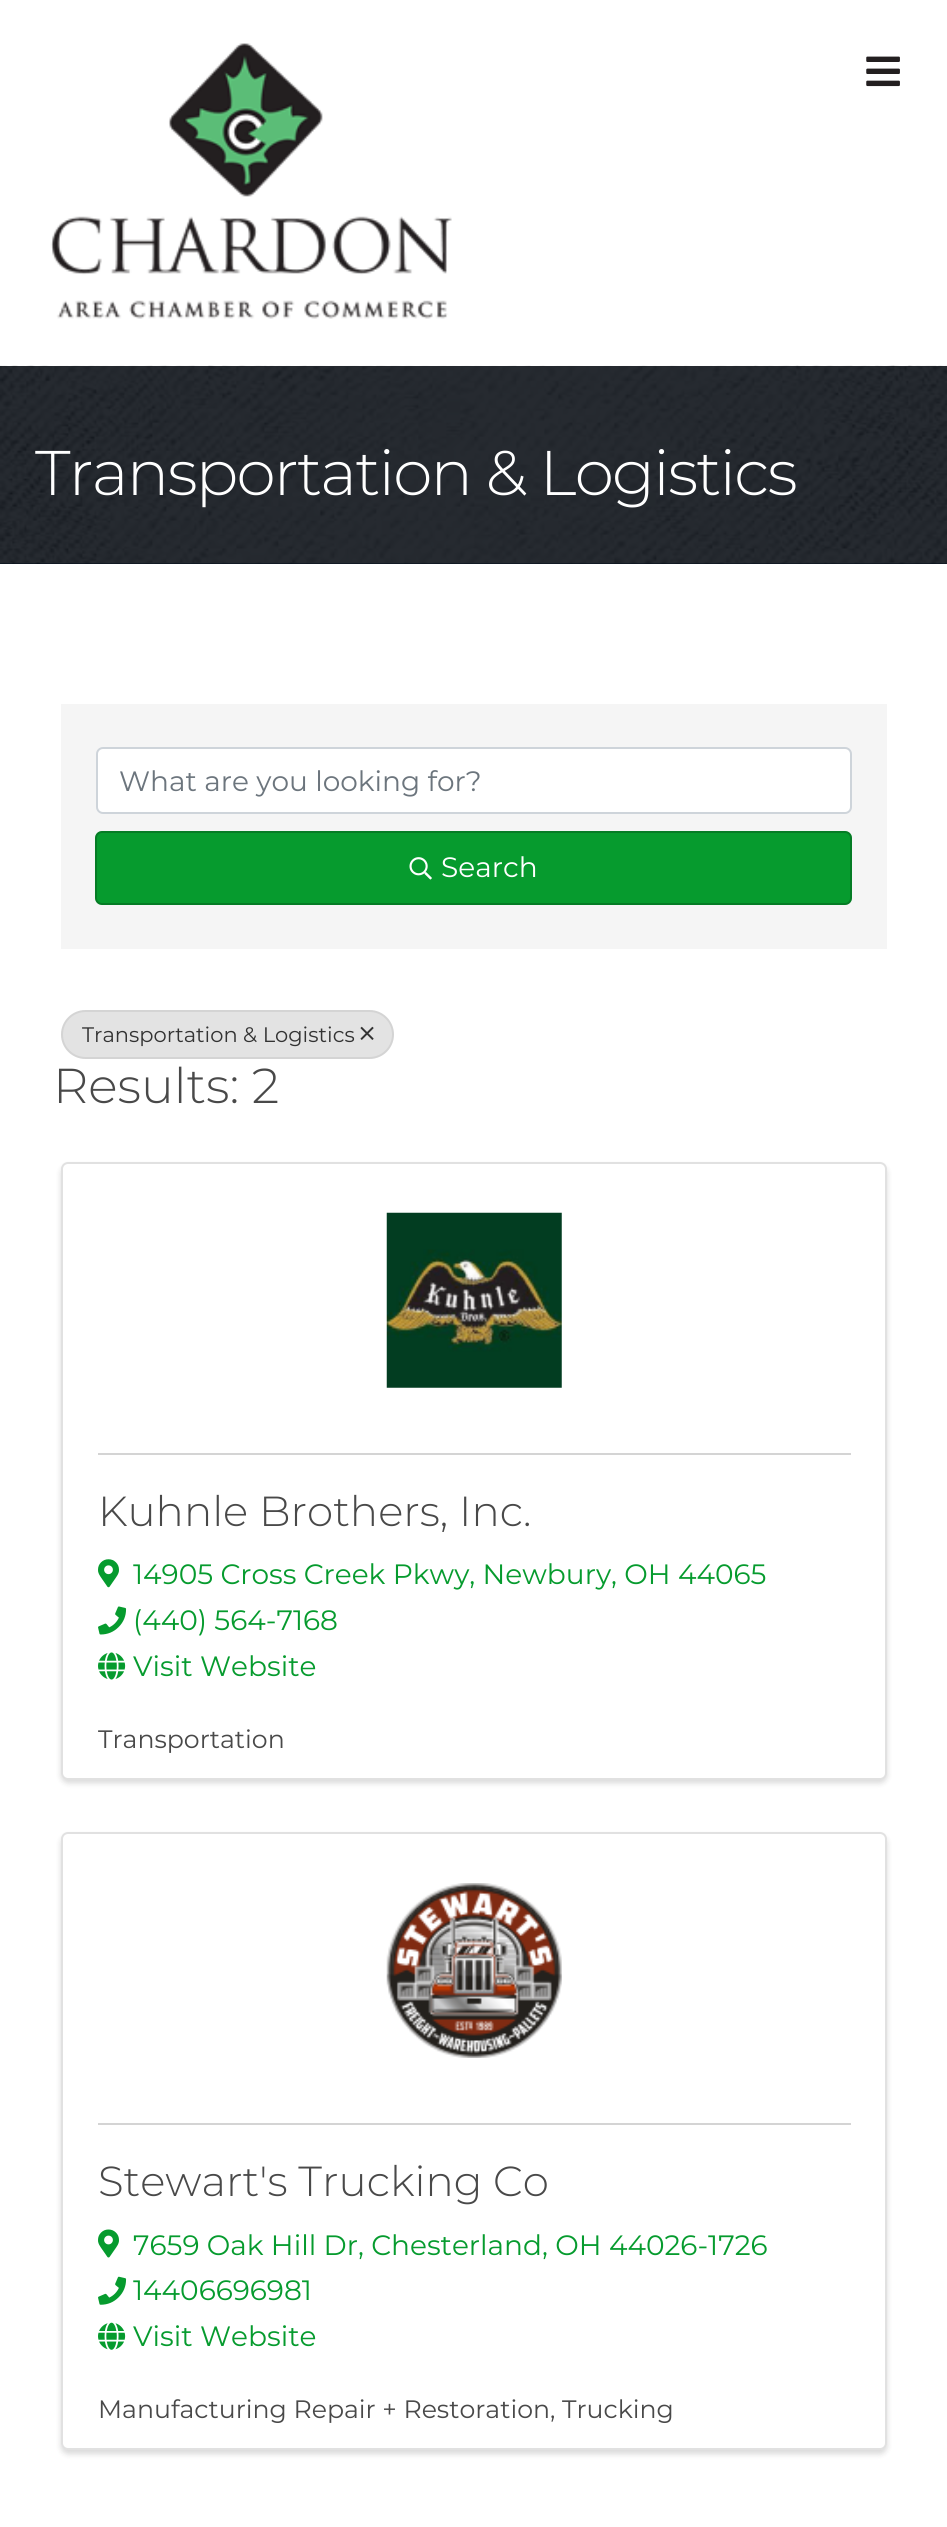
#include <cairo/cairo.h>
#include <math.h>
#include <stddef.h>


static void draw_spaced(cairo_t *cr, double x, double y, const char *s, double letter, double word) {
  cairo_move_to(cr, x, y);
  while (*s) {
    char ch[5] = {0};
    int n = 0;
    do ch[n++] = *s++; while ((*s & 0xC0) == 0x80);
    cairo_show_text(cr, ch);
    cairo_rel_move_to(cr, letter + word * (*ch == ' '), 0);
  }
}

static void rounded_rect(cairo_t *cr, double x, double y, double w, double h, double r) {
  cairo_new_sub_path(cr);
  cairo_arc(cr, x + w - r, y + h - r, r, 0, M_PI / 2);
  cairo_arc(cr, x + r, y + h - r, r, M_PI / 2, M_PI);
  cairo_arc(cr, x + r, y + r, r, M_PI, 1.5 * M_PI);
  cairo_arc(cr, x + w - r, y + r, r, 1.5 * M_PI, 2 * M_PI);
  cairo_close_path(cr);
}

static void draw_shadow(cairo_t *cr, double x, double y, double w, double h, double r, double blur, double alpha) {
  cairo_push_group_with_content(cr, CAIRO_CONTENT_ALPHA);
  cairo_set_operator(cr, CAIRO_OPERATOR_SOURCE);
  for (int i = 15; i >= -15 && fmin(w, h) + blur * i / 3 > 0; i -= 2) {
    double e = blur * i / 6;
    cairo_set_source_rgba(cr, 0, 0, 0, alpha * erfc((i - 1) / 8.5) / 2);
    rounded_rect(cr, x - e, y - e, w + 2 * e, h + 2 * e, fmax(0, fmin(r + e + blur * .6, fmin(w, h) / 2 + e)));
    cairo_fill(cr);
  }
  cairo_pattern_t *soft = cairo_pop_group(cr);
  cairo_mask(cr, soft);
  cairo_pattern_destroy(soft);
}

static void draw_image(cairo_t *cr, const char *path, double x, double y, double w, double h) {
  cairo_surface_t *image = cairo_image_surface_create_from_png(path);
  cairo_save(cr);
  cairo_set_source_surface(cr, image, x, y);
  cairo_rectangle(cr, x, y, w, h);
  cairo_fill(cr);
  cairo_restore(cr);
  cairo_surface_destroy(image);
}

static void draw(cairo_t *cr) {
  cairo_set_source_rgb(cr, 1, 1, 1);
  cairo_paint(cr);
  draw_image(cr, "images/1.png", 50, 43, 402, 276);
  draw_image(cr, "images/2.png", 866, 56, 34, 31);
  cairo_set_source_rgb(cr, 1 / 255.0, 12 / 255.0, 26 / 255.0);
  cairo_rectangle(cr, 0, 563, 947, 1);
  cairo_fill(cr);
  draw_image(cr, "images/3.png", 0, 365, 947, 199);
  cairo_set_source_rgb(cr, 245 / 255.0, 245 / 255.0, 245 / 255.0);
  cairo_rectangle(cr, 61, 704, 826, 245);
  cairo_fill(cr);
  cairo_set_source_rgb(cr, 1, 1, 1);
  rounded_rect(cr, 97, 748, 754, 65, 6);
  cairo_fill_preserve(cr);
  cairo_set_source_rgb(cr, 206 / 255.0, 212 / 255.0, 218 / 255.0);
  cairo_stroke(cr);
  cairo_set_source_rgb(cr, 6 / 255.0, 155 / 255.0, 46 / 255.0);
  rounded_rect(cr, 95, 831, 757, 74, 7);
  cairo_fill(cr);
  rounded_rect(cr, 96, 832, 755, 72, 6);
  cairo_set_source_rgba(cr, 0, 0, 0, 0.2);
  cairo_stroke(cr);
  draw_image(cr, "images/4.png", 409, 857, 23, 23);
  cairo_set_source_rgb(cr, 227 / 255.0, 227 / 255.0, 227 / 255.0);
  rounded_rect(cr, 61, 1010, 333, 49, 24.5);
  cairo_fill(cr);
  rounded_rect(cr, 62, 1011, 331, 47, 23.5);
  cairo_set_source_rgba(cr, 0, 0, 0, 0.07);
  cairo_stroke(cr);
  draw_image(cr, "images/5.png", 360, 1026, 14, 14);
  cairo_set_source_rgb(cr, 0, 0, 0);
  draw_shadow(cr, 61, 1166, 826, 617, 7, 3, 0.15);
  cairo_set_source_rgb(cr, 1, 1, 1);
  rounded_rect(cr, 61, 1162, 826, 618, 7);
  cairo_fill(cr);
  rounded_rect(cr, 62, 1163, 824, 616, 6);
  cairo_set_source_rgba(cr, 0, 0, 0, 0.12);
  cairo_stroke(cr);
  draw_image(cr, "images/6.png", 386, 1212, 176, 176);
  cairo_set_source_rgb(cr, 212 / 255.0, 212 / 255.0, 212 / 255.0);
  cairo_rectangle(cr, 98, 1453, 753, 2);
  cairo_fill(cr);
  draw_image(cr, "images/7.png", 98, 1559, 21, 29);
  draw_image(cr, "images/8.png", 98, 1606, 29, 29);
  draw_image(cr, "images/9.png", 98, 1652, 28, 28);
  cairo_set_source_rgb(cr, 0, 0, 0);
  draw_shadow(cr, 61, 1836, 826, 618, 7, 3, 0.15);
  cairo_set_source_rgb(cr, 1, 1, 1);
  rounded_rect(cr, 61, 1832, 826, 618, 7);
  cairo_fill(cr);
  rounded_rect(cr, 62, 1833, 824, 616, 6);
  cairo_set_source_rgba(cr, 0, 0, 0, 0.12);
  cairo_stroke(cr);
  draw_image(cr, "images/10.png", 386, 1883, 176, 175);
  cairo_set_source_rgb(cr, 212 / 255.0, 212 / 255.0, 212 / 255.0);
  cairo_rectangle(cr, 98, 2123, 753, 2);
  cairo_fill(cr);
  draw_image(cr, "images/11.png", 98, 2229, 21, 29);
  draw_image(cr, "images/12.png", 98, 2276, 29, 29);
  draw_image(cr, "images/13.png", 98, 2322, 28, 28);
  cairo_select_font_face(cr, "Montserrat Light", CAIRO_FONT_SLANT_NORMAL, CAIRO_FONT_WEIGHT_NORMAL);
  cairo_set_font_size(cr, 63);
  cairo_set_source_rgb(cr, 1, 1, 1);
  draw_spaced(cr, 35, 495, "Transportation & Logistics", -1.75, 0);
  cairo_select_font_face(cr, "Montserrat", CAIRO_FONT_SLANT_NORMAL, CAIRO_FONT_WEIGHT_NORMAL);
  cairo_set_font_size(cr, 28);
  cairo_set_source_rgb(cr, 108 / 255.0, 117 / 255.0, 125 / 255.0);
  cairo_move_to(cr, 119, 791);
  cairo_show_text(cr, "What are you looking for?");
  cairo_set_source_rgb(cr, 1, 1, 1);
  cairo_move_to(cr, 441, 877);
  cairo_show_text(cr, "Search");
  cairo_set_font_size(cr, 21);
  cairo_set_source_rgb(cr, 51 / 255.0, 51 / 255.0, 51 / 255.0);
  cairo_move_to(cr, 82, 1042);
  cairo_show_text(cr, "Transportation & Logistics");
  cairo_select_font_face(cr, "Montserrat Light", CAIRO_FONT_SLANT_NORMAL, CAIRO_FONT_WEIGHT_NORMAL);
  cairo_set_font_size(cr, 49);
  cairo_set_source_rgb(cr, 73 / 255.0, 73 / 255.0, 73 / 255.0);
  cairo_move_to(cr, 53, 1103);
  cairo_show_text(cr, "Results: 2");
  cairo_set_font_size(cr, 42);
  cairo_move_to(cr, 98, 1526);
  cairo_show_text(cr, "Kuhnle Brothers, Inc.");
  cairo_select_font_face(cr, "Montserrat", CAIRO_FONT_SLANT_NORMAL, CAIRO_FONT_WEIGHT_NORMAL);
  cairo_set_font_size(cr, 28);
  cairo_set_source_rgb(cr, 6 / 255.0, 155 / 255.0, 46 / 255.0);
  cairo_move_to(cr, 133, 1584);
  cairo_show_text(cr, "14905 Cross Creek Pkwy, Newbury, OH 44065");
  cairo_move_to(cr, 133, 1630);
  cairo_show_text(cr, "(440) 564-7168");
  cairo_move_to(cr, 133, 1676);
  cairo_show_text(cr, "Visit Website");
  cairo_set_font_size(cr, 25.2);
  cairo_set_source_rgb(cr, 73 / 255.0, 73 / 255.0, 73 / 255.0);
  cairo_move_to(cr, 98, 1748);
  cairo_show_text(cr, "Transportation");
  cairo_select_font_face(cr, "Montserrat Light", CAIRO_FONT_SLANT_NORMAL, CAIRO_FONT_WEIGHT_NORMAL);
  cairo_set_font_size(cr, 42);
  cairo_move_to(cr, 98, 2196);
  cairo_show_text(cr, "Stewart's Trucking Co");
  cairo_select_font_face(cr, "Montserrat", CAIRO_FONT_SLANT_NORMAL, CAIRO_FONT_WEIGHT_NORMAL);
  cairo_set_font_size(cr, 28);
  cairo_set_source_rgb(cr, 6 / 255.0, 155 / 255.0, 46 / 255.0);
  cairo_move_to(cr, 133, 2255);
  cairo_show_text(cr, "7659 Oak Hill Dr, Chesterland, OH 44026-1726");
  cairo_move_to(cr, 133, 2300);
  cairo_show_text(cr, "14406696981");
  cairo_move_to(cr, 133, 2346);
  cairo_show_text(cr, "Visit Website");
  cairo_set_font_size(cr, 25.2);
  cairo_set_source_rgb(cr, 73 / 255.0, 73 / 255.0, 73 / 255.0);
  cairo_move_to(cr, 98, 2418);
  cairo_show_text(cr, "Manufacturing Repair + Restoration, Trucking");
}

int main(void) {
  cairo_surface_t *surface = cairo_image_surface_create(CAIRO_FORMAT_RGB24, 947, 2527);
  cairo_t *cr = cairo_create(surface);
  cairo_font_options_t *options = cairo_font_options_create();
  cairo_font_options_set_hint_metrics(options, CAIRO_HINT_METRICS_OFF);
  cairo_font_options_set_hint_style(options, CAIRO_HINT_STYLE_NONE);
  cairo_set_font_options(cr, options);
  cairo_set_miter_limit(cr, 4);
  draw(cr);
  cairo_surface_write_to_png(surface, "out.png");
  cairo_font_options_destroy(options);
  cairo_destroy(cr);
  cairo_surface_destroy(surface);
  return 0;
}
